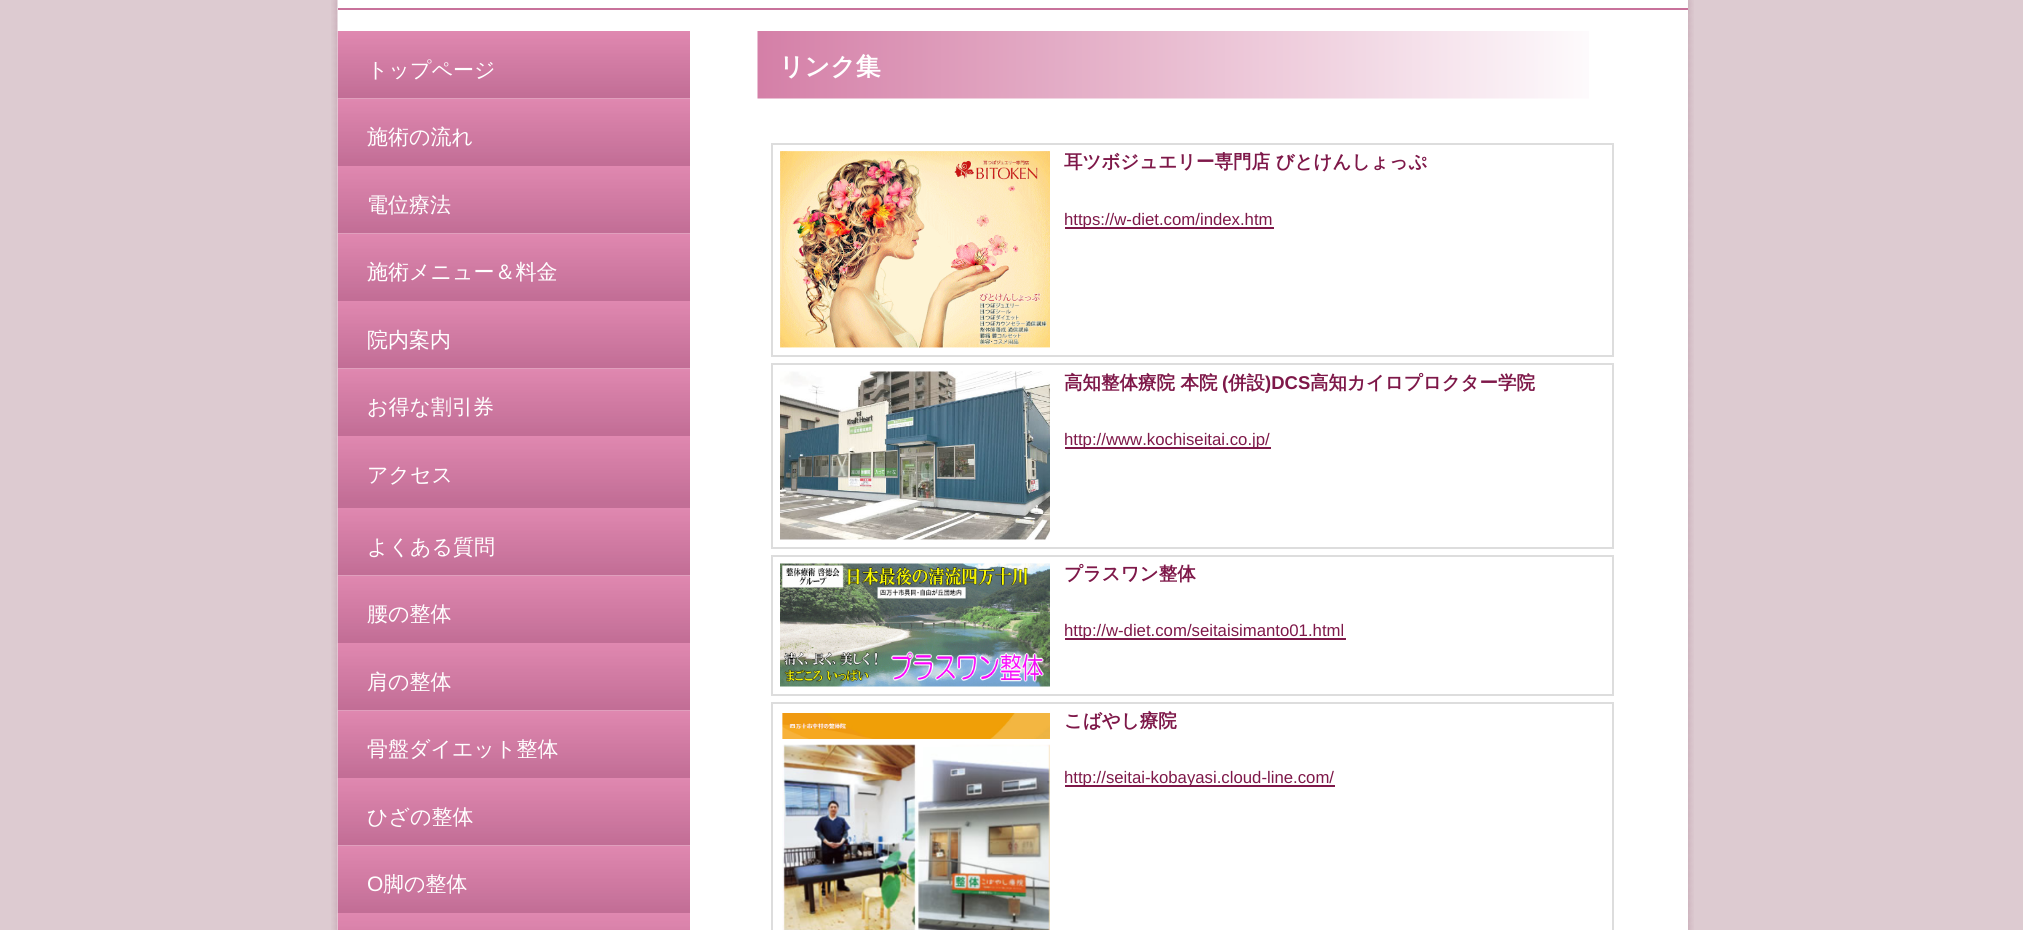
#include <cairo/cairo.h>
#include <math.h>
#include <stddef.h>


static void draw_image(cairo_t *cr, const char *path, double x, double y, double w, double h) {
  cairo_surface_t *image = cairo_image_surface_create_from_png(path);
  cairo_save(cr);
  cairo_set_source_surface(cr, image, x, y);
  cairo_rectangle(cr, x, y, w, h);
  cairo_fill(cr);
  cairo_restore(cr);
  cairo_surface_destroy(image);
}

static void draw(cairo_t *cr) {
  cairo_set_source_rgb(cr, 221 / 255.0, 203 / 255.0, 209 / 255.0);
  cairo_paint(cr);
  draw_image(cr, "images/1.png", 331, 0, 1363, 930);
  cairo_set_source_rgb(cr, 1, 1, 1);
  cairo_rectangle(cr, 1687, 0, 1, 930);
  cairo_fill(cr);
  cairo_set_source_rgb(cr, 200 / 255.0, 114 / 255.0, 155 / 255.0);
  cairo_rectangle(cr, 338, 8, 1350, 2);
  cairo_fill(cr);
  draw_image(cr, "images/2.png", 337, 31, 353, 68);
  draw_image(cr, "images/3.png", 337, 98, 353, 68);
  draw_image(cr, "images/2.png", 337, 166, 353, 68);
  draw_image(cr, "images/3.png", 337, 233, 353, 68);
  draw_image(cr, "images/4.png", 337, 301, 353, 68);
  draw_image(cr, "images/5.png", 337, 368, 353, 68);
  draw_image(cr, "images/6.png", 337, 436, 353, 72);
  draw_image(cr, "images/7.png", 337, 508, 353, 68);
  draw_image(cr, "images/8.png", 337, 575, 353, 68);
  draw_image(cr, "images/9.png", 337, 643, 353, 68);
  draw_image(cr, "images/10.png", 337, 710, 353, 68);
  draw_image(cr, "images/9.png", 337, 778, 353, 68);
  draw_image(cr, "images/11.png", 337, 845, 353, 68);
  draw_image(cr, "images/12.png", 337, 913, 353, 17);
  draw_image(cr, "images/13.png", 757, 31, 832, 68);
  cairo_rectangle(cr, 772, 144, 841, 212);
  cairo_set_source_rgb(cr, 221 / 255.0, 221 / 255.0, 221 / 255.0);
  cairo_stroke(cr);
  draw_image(cr, "images/14.png", 780, 151, 270, 197);
  cairo_set_source_rgb(cr, 126 / 255.0, 24 / 255.0, 73 / 255.0);
  cairo_rectangle(cr, 1065, 227, 209, 2);
  cairo_fill(cr);
  cairo_rectangle(cr, 772, 364, 841, 184);
  cairo_set_source_rgb(cr, 221 / 255.0, 221 / 255.0, 221 / 255.0);
  cairo_stroke(cr);
  draw_image(cr, "images/15.png", 780, 371, 270, 169);
  cairo_set_source_rgb(cr, 126 / 255.0, 24 / 255.0, 73 / 255.0);
  cairo_rectangle(cr, 1065, 447, 206, 2);
  cairo_fill(cr);
  cairo_rectangle(cr, 772, 556, 841, 139);
  cairo_set_source_rgb(cr, 221 / 255.0, 221 / 255.0, 221 / 255.0);
  cairo_stroke(cr);
  draw_image(cr, "images/16.png", 780, 563, 270, 124);
  cairo_set_source_rgb(cr, 126 / 255.0, 24 / 255.0, 73 / 255.0);
  cairo_rectangle(cr, 1065, 638, 281, 2);
  cairo_fill(cr);
  cairo_rectangle(cr, 772, 703, 841, 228);
  cairo_set_source_rgb(cr, 221 / 255.0, 221 / 255.0, 221 / 255.0);
  cairo_stroke(cr);
  draw_image(cr, "images/17.png", 782, 713, 268, 217);
  cairo_set_source_rgb(cr, 126 / 255.0, 24 / 255.0, 73 / 255.0);
  cairo_rectangle(cr, 1065, 785, 270, 2);
  cairo_fill(cr);
  cairo_select_font_face(cr, "WenQuanYi Zen Hei Medium", CAIRO_FONT_SLANT_NORMAL, CAIRO_FONT_WEIGHT_NORMAL);
  cairo_set_font_size(cr, 21);
  cairo_set_source_rgb(cr, 1, 1, 1);
  cairo_move_to(cr, 367, 77);
  cairo_show_text(cr, "トップページ");
  cairo_move_to(cr, 367, 144);
  cairo_show_text(cr, "施術の流れ");
  cairo_move_to(cr, 367, 212);
  cairo_show_text(cr, "電位療法");
  cairo_move_to(cr, 367, 279);
  cairo_show_text(cr, "施術メニュー＆料金");
  cairo_move_to(cr, 367, 347);
  cairo_show_text(cr, "院内案内");
  cairo_move_to(cr, 367, 414);
  cairo_show_text(cr, "お得な割引券");
  cairo_move_to(cr, 367, 482);
  cairo_show_text(cr, "アクセス");
  cairo_move_to(cr, 367, 554);
  cairo_show_text(cr, "よくある質問");
  cairo_move_to(cr, 367, 621);
  cairo_show_text(cr, "腰の整体");
  cairo_move_to(cr, 367, 689);
  cairo_show_text(cr, "肩の整体");
  cairo_move_to(cr, 367, 756);
  cairo_show_text(cr, "骨盤ダイエット整体");
  cairo_move_to(cr, 367, 824);
  cairo_show_text(cr, "ひざの整体");
  cairo_select_font_face(cr, "Liberation Sans", CAIRO_FONT_SLANT_NORMAL, CAIRO_FONT_WEIGHT_NORMAL);
  cairo_move_to(cr, 367, 891);
  cairo_show_text(cr, "O");
  cairo_select_font_face(cr, "WenQuanYi Zen Hei Medium", CAIRO_FONT_SLANT_NORMAL, CAIRO_FONT_WEIGHT_NORMAL);
  cairo_move_to(cr, 383, 891);
  cairo_show_text(cr, "脚の整体");
  cairo_select_font_face(cr, "WenQuanYi Zen Hei", CAIRO_FONT_SLANT_NORMAL, CAIRO_FONT_WEIGHT_BOLD);
  cairo_set_font_size(cr, 25);
  cairo_move_to(cr, 779, 75);
  cairo_show_text(cr, "リンク集");
  cairo_set_font_size(cr, 18.5);
  cairo_set_source_rgb(cr, 126 / 255.0, 24 / 255.0, 73 / 255.0);
  cairo_move_to(cr, 1064, 168);
  cairo_show_text(cr, "耳ツボジュエリー専門店 びとけんしょっぷ");
  cairo_select_font_face(cr, "Liberation Sans", CAIRO_FONT_SLANT_NORMAL, CAIRO_FONT_WEIGHT_NORMAL);
  cairo_set_font_size(cr, 16.75);
  cairo_move_to(cr, 1064, 225);
  cairo_show_text(cr, "https://w-diet.com/index.htm");
  cairo_select_font_face(cr, "WenQuanYi Zen Hei", CAIRO_FONT_SLANT_NORMAL, CAIRO_FONT_WEIGHT_BOLD);
  cairo_set_font_size(cr, 18.5);
  cairo_move_to(cr, 1064, 389);
  cairo_show_text(cr, "高知整体療院 本院");
  cairo_select_font_face(cr, "Liberation Sans", CAIRO_FONT_SLANT_NORMAL, CAIRO_FONT_WEIGHT_BOLD);
  cairo_move_to(cr, 1222, 389);
  cairo_show_text(cr, "(");
  cairo_select_font_face(cr, "WenQuanYi Zen Hei", CAIRO_FONT_SLANT_NORMAL, CAIRO_FONT_WEIGHT_BOLD);
  cairo_move_to(cr, 1228, 389);
  cairo_show_text(cr, "併設");
  cairo_select_font_face(cr, "Liberation Sans", CAIRO_FONT_SLANT_NORMAL, CAIRO_FONT_WEIGHT_BOLD);
  cairo_move_to(cr, 1265, 389);
  cairo_show_text(cr, ")DCS");
  cairo_select_font_face(cr, "WenQuanYi Zen Hei", CAIRO_FONT_SLANT_NORMAL, CAIRO_FONT_WEIGHT_BOLD);
  cairo_move_to(cr, 1310, 389);
  cairo_show_text(cr, "高知カイロプロクター学院");
  cairo_select_font_face(cr, "Liberation Sans", CAIRO_FONT_SLANT_NORMAL, CAIRO_FONT_WEIGHT_NORMAL);
  cairo_set_font_size(cr, 16.75);
  cairo_move_to(cr, 1064, 445);
  cairo_show_text(cr, "http://www.kochiseitai.co.jp/");
  cairo_select_font_face(cr, "WenQuanYi Zen Hei", CAIRO_FONT_SLANT_NORMAL, CAIRO_FONT_WEIGHT_BOLD);
  cairo_set_font_size(cr, 18.5);
  cairo_move_to(cr, 1064, 580);
  cairo_show_text(cr, "プラスワン整体");
  cairo_select_font_face(cr, "Liberation Sans", CAIRO_FONT_SLANT_NORMAL, CAIRO_FONT_WEIGHT_NORMAL);
  cairo_set_font_size(cr, 16.75);
  cairo_move_to(cr, 1064, 636);
  cairo_show_text(cr, "http://w-diet.com/seitaisimanto01.html");
  cairo_select_font_face(cr, "WenQuanYi Zen Hei", CAIRO_FONT_SLANT_NORMAL, CAIRO_FONT_WEIGHT_BOLD);
  cairo_set_font_size(cr, 18.5);
  cairo_move_to(cr, 1064, 727);
  cairo_show_text(cr, "こばやし療院");
  cairo_select_font_face(cr, "Liberation Sans", CAIRO_FONT_SLANT_NORMAL, CAIRO_FONT_WEIGHT_NORMAL);
  cairo_set_font_size(cr, 16.75);
  cairo_move_to(cr, 1064, 783);
  cairo_show_text(cr, "http://seitai-kobayasi.cloud-line.com/");
}

int main(void) {
  cairo_surface_t *surface = cairo_image_surface_create(CAIRO_FORMAT_RGB24, 2023, 930);
  cairo_t *cr = cairo_create(surface);
  cairo_font_options_t *options = cairo_font_options_create();
  cairo_font_options_set_hint_metrics(options, CAIRO_HINT_METRICS_OFF);
  cairo_font_options_set_hint_style(options, CAIRO_HINT_STYLE_NONE);
  cairo_set_font_options(cr, options);
  cairo_set_miter_limit(cr, 4);
  draw(cr);
  cairo_surface_write_to_png(surface, "out.png");
  cairo_font_options_destroy(options);
  cairo_destroy(cr);
  cairo_surface_destroy(surface);
  return 0;
}
